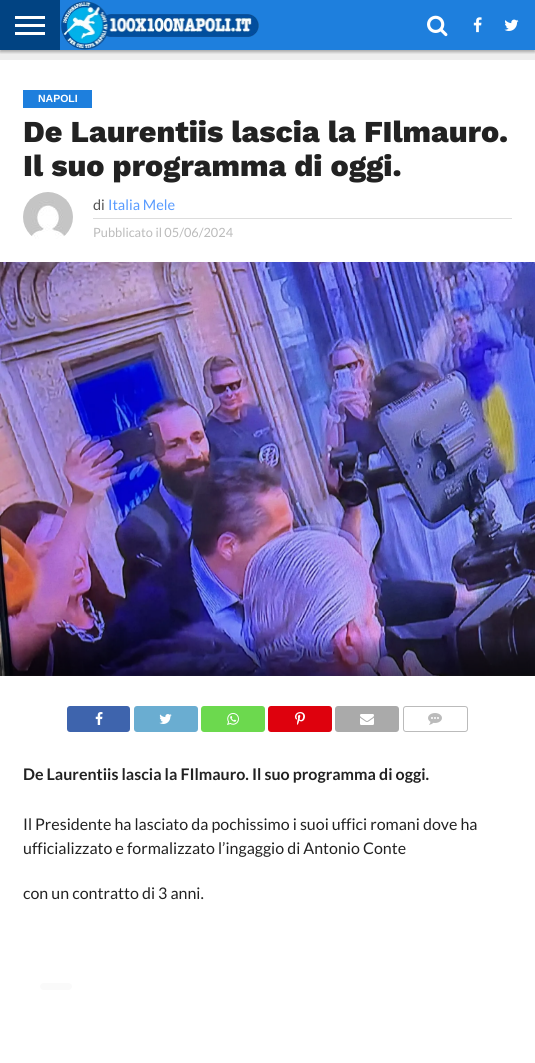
#include <cairo/cairo.h>
#include <math.h>
#include <stddef.h>


static void rounded_rect(cairo_t *cr, double x, double y, double w, double h, double r) {
  cairo_new_sub_path(cr);
  cairo_arc(cr, x + w - r, y + h - r, r, 0, M_PI / 2);
  cairo_arc(cr, x + r, y + h - r, r, M_PI / 2, M_PI);
  cairo_arc(cr, x + r, y + r, r, M_PI, 1.5 * M_PI);
  cairo_arc(cr, x + w - r, y + r, r, 1.5 * M_PI, 2 * M_PI);
  cairo_close_path(cr);
}

static void draw_shadow(cairo_t *cr, double x, double y, double w, double h, double r, double blur, double alpha) {
  cairo_push_group_with_content(cr, CAIRO_CONTENT_ALPHA);
  cairo_set_operator(cr, CAIRO_OPERATOR_SOURCE);
  for (int i = 15; i >= -15 && fmin(w, h) + blur * i / 3 > 0; i -= 2) {
    double e = blur * i / 6;
    cairo_set_source_rgba(cr, 0, 0, 0, alpha * erfc((i - 1) / 8.5) / 2);
    rounded_rect(cr, x - e, y - e, w + 2 * e, h + 2 * e, fmax(0, fmin(r + e + blur * .6, fmin(w, h) / 2 + e)));
    cairo_fill(cr);
  }
  cairo_pattern_t *soft = cairo_pop_group(cr);
  cairo_mask(cr, soft);
  cairo_pattern_destroy(soft);
}

static void draw_image(cairo_t *cr, const char *path, double x, double y, double w, double h) {
  cairo_surface_t *image = cairo_image_surface_create_from_png(path);
  cairo_save(cr);
  cairo_set_source_surface(cr, image, x, y);
  cairo_rectangle(cr, x, y, w, h);
  cairo_fill(cr);
  cairo_restore(cr);
  cairo_surface_destroy(image);
}

static void draw(cairo_t *cr) {
  cairo_pattern_t *gradient;
  cairo_set_source_rgb(cr, 238 / 255.0, 238 / 255.0, 238 / 255.0);
  cairo_paint(cr);
  cairo_set_source_rgb(cr, 30 / 255.0, 127 / 255.0, 221 / 255.0);
  cairo_rectangle(cr, 60, 0, 475, 50);
  cairo_fill(cr);
  cairo_save(cr);
  cairo_rectangle(cr, 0, 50, 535, 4);
  cairo_clip(cr);
  cairo_set_source_rgb(cr, 0, 0, 0);
  draw_shadow(cr, 0, 2, 535, 50, 0, 1.5, 0.3);
  cairo_restore(cr);
  cairo_set_source_rgb(cr, 1 / 255.0, 67 / 255.0, 130 / 255.0);
  cairo_rectangle(cr, 0, 0, 60, 50);
  cairo_fill(cr);
  cairo_set_source_rgb(cr, 1, 1, 1);
  cairo_rectangle(cr, 15, 16, 30, 3);
  cairo_fill(cr);
  cairo_rectangle(cr, 15, 24, 30, 3);
  cairo_fill(cr);
  cairo_rectangle(cr, 15, 32, 30, 3);
  cairo_fill(cr);
  draw_image(cr, "images/1.png", 61, 1, 198, 49);
  draw_image(cr, "images/2.png", 427, 15, 21, 22);
  draw_image(cr, "images/3.png", 473, 17, 9, 16);
  draw_image(cr, "images/4.png", 504, 19, 15, 12);
  cairo_rectangle(cr, 0, 60, 535, 1003);
  cairo_fill(cr);
  cairo_set_source_rgb(cr, 30 / 255.0, 127 / 255.0, 221 / 255.0);
  cairo_rectangle(cr, 23, 90, 69, 18);
  cairo_fill(cr);
  draw_image(cr, "images/5.png", 23, 192, 50, 47);
  cairo_set_source_rgb(cr, 221 / 255.0, 221 / 255.0, 221 / 255.0);
  cairo_rectangle(cr, 93, 218, 419, 1);
  cairo_fill(cr);
  draw_image(cr, "images/6.png", 0, 262, 535, 414);
  gradient = cairo_pattern_create_linear(268, 636, 268, 676);
  cairo_pattern_add_color_stop_rgba(gradient, 0, 0, 0, 0, 0);
  cairo_pattern_add_color_stop_rgba(gradient, 0.5, 0, 0, 0, 0.4);
  cairo_pattern_add_color_stop_rgba(gradient, 1, 0, 0, 0, 0.6);
  cairo_set_source(cr, gradient);
  cairo_pattern_destroy(gradient);
  cairo_rectangle(cr, 0, 637, 535, 39);
  cairo_fill(cr);
  cairo_set_source_rgb(cr, 62 / 255.0, 100 / 255.0, 173 / 255.0);
  rounded_rect(cr, 67, 706, 63, 26, 3);
  cairo_fill(cr);
  draw_image(cr, "images/7.png", 95, 712, 8, 13);
  cairo_set_source_rgb(cr, 106 / 255.0, 173 / 255.0, 209 / 255.0);
  rounded_rect(cr, 134, 706, 64, 26, 3);
  cairo_fill(cr);
  draw_image(cr, "images/8.png", 159, 714, 13, 10);
  cairo_set_source_rgb(cr, 108 / 255.0, 217 / 255.0, 78 / 255.0);
  rounded_rect(cr, 201, 706, 64, 26, 3);
  cairo_fill(cr);
  draw_image(cr, "images/9.png", 227, 713, 12, 12);
  cairo_set_source_rgb(cr, 222 / 255.0, 1 / 255.0, 13 / 255.0);
  rounded_rect(cr, 268, 706, 64, 26, 3);
  cairo_fill(cr);
  draw_image(cr, "images/10.png", 295, 712, 10, 13);
  cairo_set_source_rgb(cr, 170 / 255.0, 170 / 255.0, 170 / 255.0);
  rounded_rect(cr, 335, 706, 64, 26, 3);
  cairo_fill(cr);
  draw_image(cr, "images/11.png", 360, 714, 14, 11);
  rounded_rect(cr, 403.5, 706.5, 64, 25, 2.5);
  cairo_set_source_rgb(cr, 187 / 255.0, 187 / 255.0, 187 / 255.0);
  cairo_set_line_width(cr, 1);
  cairo_stroke(cr);
  draw_image(cr, "images/12.png", 428, 713, 14, 12);
  cairo_set_source_rgb(cr, 250 / 255.0, 250 / 255.0, 250 / 255.0);
  rounded_rect(cr, 40, 983, 32, 7, 3.5);
  cairo_fill(cr);
  cairo_select_font_face(cr, "Liberation Sans", CAIRO_FONT_SLANT_NORMAL, CAIRO_FONT_WEIGHT_BOLD);
  cairo_set_font_size(cr, 10.5);
  cairo_set_source_rgb(cr, 1, 1, 1);
  cairo_move_to(cr, 38, 102);
  cairo_show_text(cr, "NAPOLI");
  cairo_select_font_face(cr, "Work Sans ExtraBold", CAIRO_FONT_SLANT_NORMAL, CAIRO_FONT_WEIGHT_NORMAL);
  cairo_set_font_size(cr, 30.4);
  cairo_set_source_rgb(cr, 34 / 255.0, 34 / 255.0, 34 / 255.0);
  cairo_move_to(cr, 23, 142);
  cairo_show_text(cr, "De Laurentiis lascia la FIlmauro.");
  cairo_move_to(cr, 23, 176);
  cairo_show_text(cr, "Il suo programma di oggi.");
  cairo_select_font_face(cr, "Lato", CAIRO_FONT_SLANT_NORMAL, CAIRO_FONT_WEIGHT_NORMAL);
  cairo_set_font_size(cr, 14.5);
  cairo_set_source_rgb(cr, 85 / 255.0, 85 / 255.0, 85 / 255.0);
  cairo_move_to(cr, 93, 210);
  cairo_show_text(cr, "di");
  cairo_set_source_rgb(cr, 89 / 255.0, 155 / 255.0, 1);
  cairo_move_to(cr, 108, 210);
  cairo_show_text(cr, "Italia Mele");
  cairo_set_font_size(cr, 12.75);
  cairo_set_source_rgb(cr, 187 / 255.0, 187 / 255.0, 187 / 255.0);
  cairo_move_to(cr, 93, 237);
  cairo_show_text(cr, "Pubblicato il 05/06/2024");
  cairo_select_font_face(cr, "Lato", CAIRO_FONT_SLANT_NORMAL, CAIRO_FONT_WEIGHT_BOLD);
  cairo_set_font_size(cr, 16);
  cairo_set_source_rgb(cr, 34 / 255.0, 34 / 255.0, 34 / 255.0);
  cairo_move_to(cr, 23, 780);
  cairo_show_text(cr, "De Laurentiis lascia la FIlmauro. Il suo programma di oggi.");
  cairo_select_font_face(cr, "Lato", CAIRO_FONT_SLANT_NORMAL, CAIRO_FONT_WEIGHT_NORMAL);
  cairo_move_to(cr, 23, 830);
  cairo_show_text(cr, "Il Presidente ha lasciato da pochissimo i suoi uffici romani dove ha");
  cairo_move_to(cr, 23, 854);
  cairo_show_text(cr, "ufficializzato e formalizzato l’ingaggio di Antonio Conte");
  cairo_move_to(cr, 23, 899);
  cairo_show_text(cr, "con un contratto di 3 anni.");
}

int main(void) {
  cairo_surface_t *surface = cairo_image_surface_create(CAIRO_FORMAT_RGB24, 535, 1063);
  cairo_t *cr = cairo_create(surface);
  cairo_font_options_t *options = cairo_font_options_create();
  cairo_font_options_set_hint_metrics(options, CAIRO_HINT_METRICS_OFF);
  cairo_font_options_set_hint_style(options, CAIRO_HINT_STYLE_NONE);
  cairo_set_font_options(cr, options);
  cairo_set_miter_limit(cr, 4);
  draw(cr);
  cairo_surface_write_to_png(surface, "out.png");
  cairo_font_options_destroy(options);
  cairo_destroy(cr);
  cairo_surface_destroy(surface);
  return 0;
}
